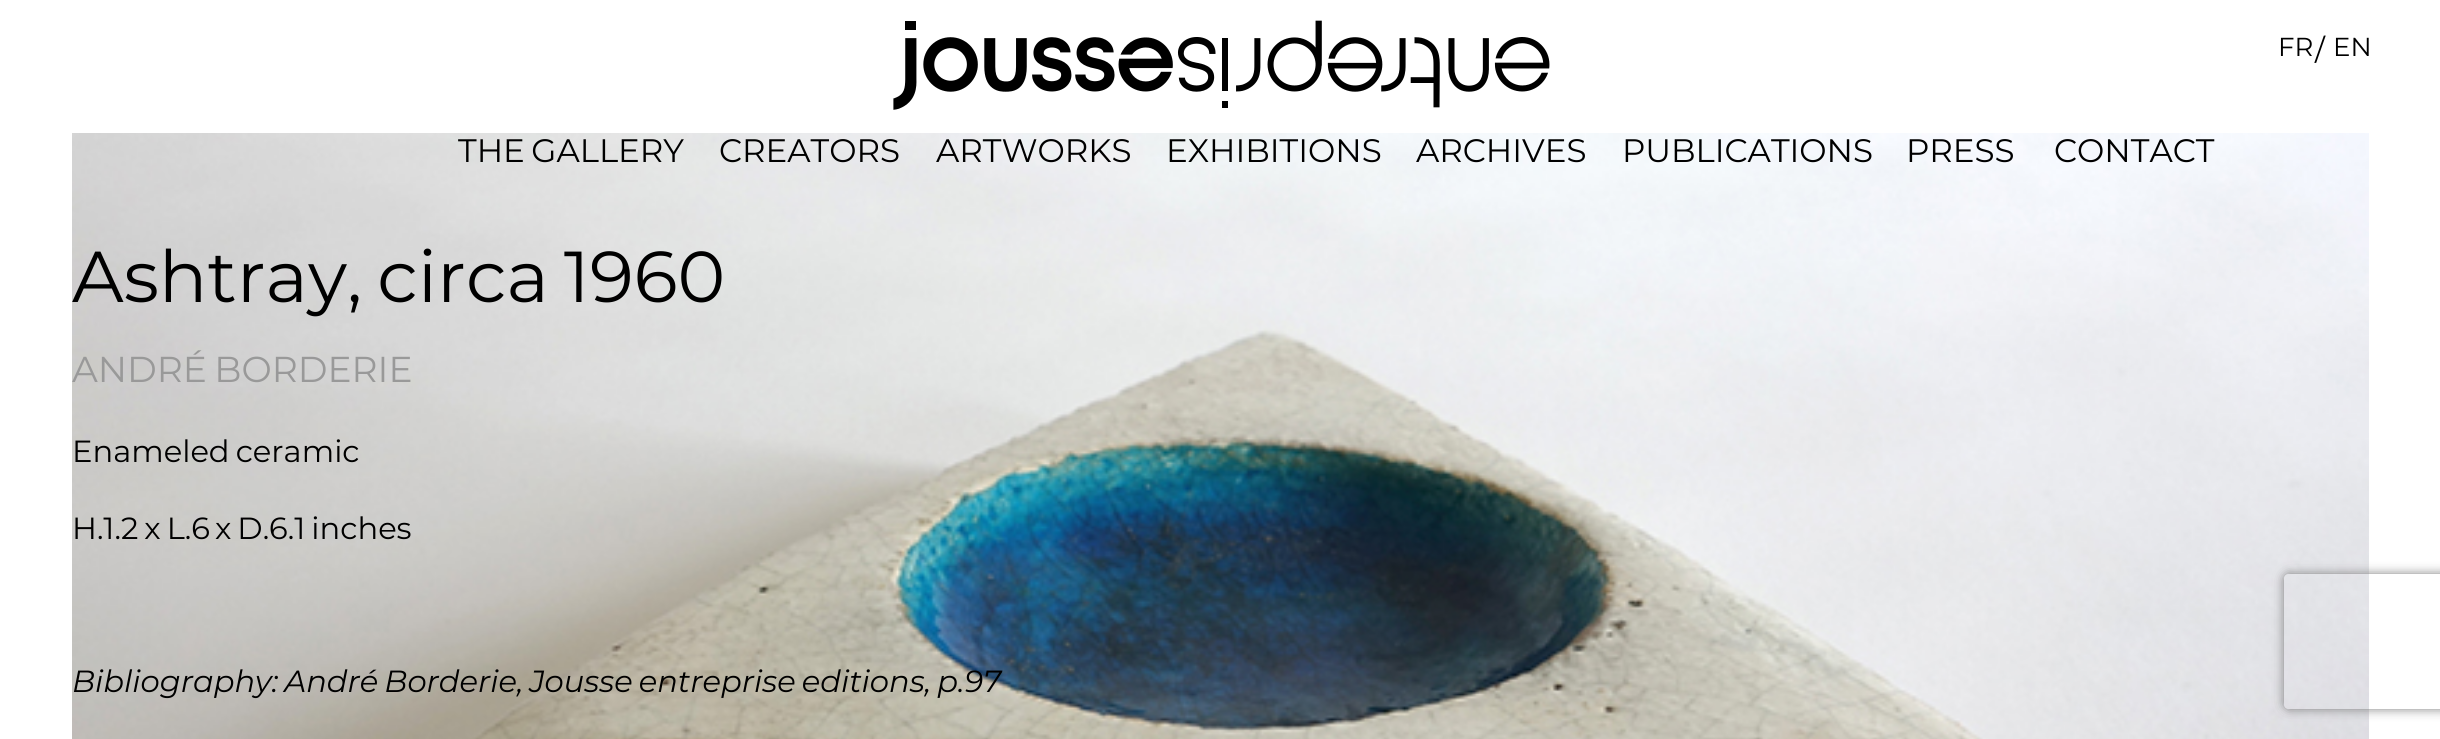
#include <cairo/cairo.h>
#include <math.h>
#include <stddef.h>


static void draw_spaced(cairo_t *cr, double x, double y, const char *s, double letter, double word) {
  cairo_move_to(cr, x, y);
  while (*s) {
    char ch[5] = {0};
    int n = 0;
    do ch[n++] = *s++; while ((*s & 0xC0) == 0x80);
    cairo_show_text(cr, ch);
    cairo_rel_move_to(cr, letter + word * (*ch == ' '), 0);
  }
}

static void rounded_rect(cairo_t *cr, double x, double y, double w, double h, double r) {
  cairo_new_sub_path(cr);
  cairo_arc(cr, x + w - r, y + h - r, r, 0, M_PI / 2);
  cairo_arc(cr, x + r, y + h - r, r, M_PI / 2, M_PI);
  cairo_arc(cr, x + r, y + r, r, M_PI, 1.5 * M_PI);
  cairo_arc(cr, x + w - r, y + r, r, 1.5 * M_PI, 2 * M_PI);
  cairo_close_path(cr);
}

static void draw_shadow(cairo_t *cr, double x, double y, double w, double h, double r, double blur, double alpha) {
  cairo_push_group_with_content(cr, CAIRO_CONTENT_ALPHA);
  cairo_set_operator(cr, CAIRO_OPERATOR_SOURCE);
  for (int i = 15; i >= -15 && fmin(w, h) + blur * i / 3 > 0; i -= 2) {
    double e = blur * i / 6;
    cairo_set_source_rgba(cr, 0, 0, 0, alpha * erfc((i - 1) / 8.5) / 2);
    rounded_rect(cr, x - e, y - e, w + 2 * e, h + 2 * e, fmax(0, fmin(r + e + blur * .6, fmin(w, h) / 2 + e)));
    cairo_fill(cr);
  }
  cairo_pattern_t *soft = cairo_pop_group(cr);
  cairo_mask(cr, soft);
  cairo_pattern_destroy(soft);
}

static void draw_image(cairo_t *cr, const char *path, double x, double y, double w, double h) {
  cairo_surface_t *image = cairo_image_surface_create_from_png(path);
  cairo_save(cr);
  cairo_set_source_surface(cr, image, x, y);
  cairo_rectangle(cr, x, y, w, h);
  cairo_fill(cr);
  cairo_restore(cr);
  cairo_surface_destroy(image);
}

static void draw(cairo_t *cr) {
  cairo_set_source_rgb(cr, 1, 1, 1);
  cairo_paint(cr);
  draw_image(cr, "images/1.png", 893, 20, 657, 90);
  draw_image(cr, "images/2.png", 72, 133, 2297, 606);
  cairo_save(cr);
  cairo_set_fill_rule(cr, CAIRO_FILL_RULE_EVEN_ODD);
  cairo_new_path(cr);
  cairo_move_to(cr, 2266, 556);
  cairo_line_to(cr, 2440, 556);
  cairo_line_to(cr, 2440, 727);
  cairo_line_to(cr, 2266, 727);
  cairo_close_path(cr);
  cairo_move_to(cr, 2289, 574);
  cairo_line_to(cr, 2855, 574);
  cairo_curve_to(cr, 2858, 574, 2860, 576, 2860, 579);
  cairo_line_to(cr, 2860, 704);
  cairo_curve_to(cr, 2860, 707, 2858, 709, 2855, 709);
  cairo_line_to(cr, 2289, 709);
  cairo_curve_to(cr, 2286, 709, 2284, 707, 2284, 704);
  cairo_line_to(cr, 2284, 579);
  cairo_curve_to(cr, 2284, 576, 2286, 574, 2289, 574);
  cairo_close_path(cr);
  cairo_clip(cr);
  cairo_set_source_rgb(cr, 128 / 255.0, 128 / 255.0, 128 / 255.0);
  draw_shadow(cr, 2284, 574, 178, 135, 5, 5.5, 1);
  cairo_restore(cr);
  cairo_select_font_face(cr, "Montserrat Thin", CAIRO_FONT_SLANT_NORMAL, CAIRO_FONT_WEIGHT_NORMAL);
  cairo_set_font_size(cr, 26);
  cairo_set_source_rgb(cr, 0, 0, 0);
  cairo_move_to(cr, 2278, 56);
  cairo_show_text(cr, "FR");
  cairo_set_font_size(cr, 29);
  cairo_move_to(cr, 2315, 60);
  cairo_show_text(cr, "/");
  cairo_set_font_size(cr, 26);
  cairo_move_to(cr, 2333, 56);
  cairo_show_text(cr, "EN");
  cairo_set_font_size(cr, 32.5);
  draw_spaced(cr, 458, 162, "THE GALLERY", 0, -2);
  cairo_move_to(cr, 719, 162);
  cairo_show_text(cr, "CREATORS");
  cairo_move_to(cr, 936, 162);
  cairo_show_text(cr, "ARTWORKS");
  cairo_move_to(cr, 1166, 162);
  cairo_show_text(cr, "EXHIBITIONS");
  cairo_move_to(cr, 1416, 162);
  cairo_show_text(cr, "ARCHIVES");
  cairo_move_to(cr, 1622, 162);
  cairo_show_text(cr, "PUBLICATIONS");
  cairo_move_to(cr, 1906, 162);
  cairo_show_text(cr, "PRESS");
  cairo_move_to(cr, 2054, 162);
  cairo_show_text(cr, "CONTACT");
  cairo_set_font_size(cr, 72);
  draw_spaced(cr, 72, 302, "Ashtray, circa 1960", 0, -4);
  cairo_set_font_size(cr, 36);
  cairo_set_source_rgb(cr, 153 / 255.0, 153 / 255.0, 153 / 255.0);
  draw_spaced(cr, 72, 382, "ANDRÉ BORDERIE", 0, -2);
  cairo_set_font_size(cr, 30.6);
  cairo_set_source_rgb(cr, 0, 0, 0);
  draw_spaced(cr, 72, 462, "Enameled ceramic", 0, -2);
  draw_spaced(cr, 72, 539, "H.1.2 x L.6", 0, -2);
  draw_spaced(cr, 215, 539, "x D.6.1 inches", 0, -2);
  cairo_select_font_face(cr, "Montserrat Thin", CAIRO_FONT_SLANT_ITALIC, CAIRO_FONT_WEIGHT_NORMAL);
  draw_spaced(cr, 72, 692, "Bibliography: André Borderie, Jousse entreprise editions, p.97", 0, -2);
}

int main(void) {
  cairo_surface_t *surface = cairo_image_surface_create(CAIRO_FORMAT_RGB24, 2440, 739);
  cairo_t *cr = cairo_create(surface);
  cairo_font_options_t *options = cairo_font_options_create();
  cairo_font_options_set_hint_metrics(options, CAIRO_HINT_METRICS_OFF);
  cairo_font_options_set_hint_style(options, CAIRO_HINT_STYLE_NONE);
  cairo_set_font_options(cr, options);
  cairo_set_miter_limit(cr, 4);
  draw(cr);
  cairo_surface_write_to_png(surface, "out.png");
  cairo_font_options_destroy(options);
  cairo_destroy(cr);
  cairo_surface_destroy(surface);
  return 0;
}
